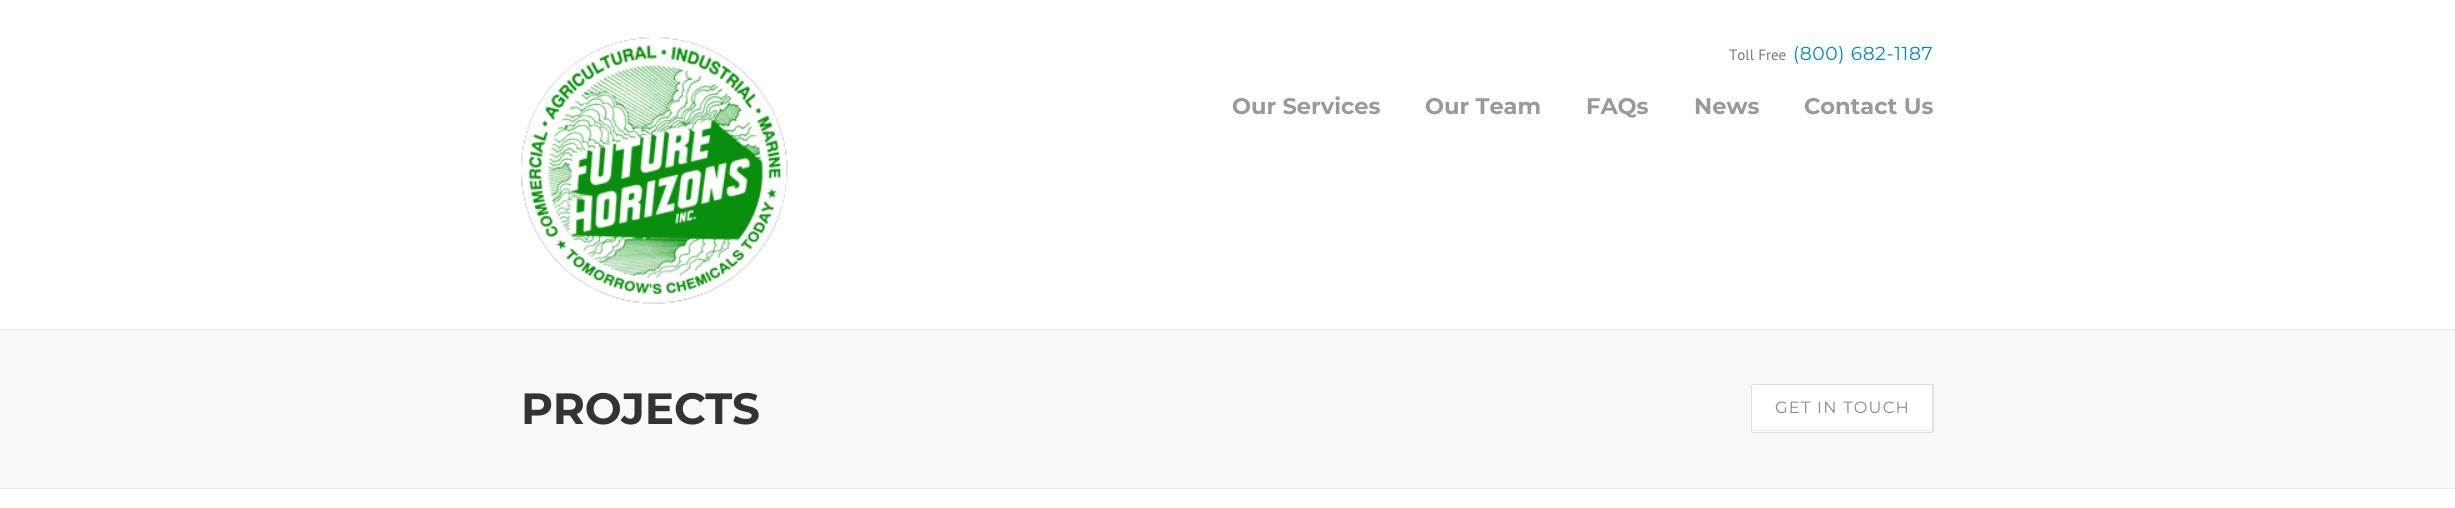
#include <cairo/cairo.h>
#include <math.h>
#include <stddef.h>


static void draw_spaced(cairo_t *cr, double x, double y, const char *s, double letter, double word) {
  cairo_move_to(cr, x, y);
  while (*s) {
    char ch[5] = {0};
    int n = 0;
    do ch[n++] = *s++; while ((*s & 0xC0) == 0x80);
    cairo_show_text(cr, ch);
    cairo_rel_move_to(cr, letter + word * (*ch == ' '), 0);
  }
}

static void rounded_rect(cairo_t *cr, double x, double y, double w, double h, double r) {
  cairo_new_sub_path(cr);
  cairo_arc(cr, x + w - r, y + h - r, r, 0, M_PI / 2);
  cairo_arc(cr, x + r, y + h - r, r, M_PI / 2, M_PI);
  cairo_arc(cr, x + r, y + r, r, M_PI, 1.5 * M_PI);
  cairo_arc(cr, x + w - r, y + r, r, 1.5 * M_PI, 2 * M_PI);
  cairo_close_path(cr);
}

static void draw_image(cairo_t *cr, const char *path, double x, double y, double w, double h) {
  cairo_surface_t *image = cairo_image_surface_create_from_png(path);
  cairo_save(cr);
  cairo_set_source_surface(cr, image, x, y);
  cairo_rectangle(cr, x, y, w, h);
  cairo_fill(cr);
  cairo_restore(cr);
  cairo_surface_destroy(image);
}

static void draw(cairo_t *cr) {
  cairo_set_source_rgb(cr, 1, 1, 1);
  cairo_paint(cr);
  draw_image(cr, "images/1.png", 521, 37, 267, 267);
  cairo_set_source_rgb(cr, 248 / 255.0, 249 / 255.0, 249 / 255.0);
  cairo_rectangle(cr, 0, 330, 2455, 158);
  cairo_fill(cr);
  cairo_set_source_rgb(cr, 233 / 255.0, 233 / 255.0, 233 / 255.0);
  cairo_rectangle(cr, 0, 329, 2455, 1);
  cairo_fill(cr);
  cairo_rectangle(cr, 0, 488, 2455, 1);
  cairo_fill(cr);
  cairo_set_source_rgb(cr, 1, 1, 1);
  rounded_rect(cr, 1751, 384, 183, 49, 2.5);
  cairo_fill(cr);
  cairo_set_source_rgb(cr, 230 / 255.0, 230 / 255.0, 230 / 255.0);
  cairo_new_path(cr);
  cairo_move_to(cr, 1753, 430);
  cairo_line_to(cr, 1753, 431);
  cairo_line_to(cr, 1932, 431);
  cairo_curve_to(cr, 1934, 431, 1933, 424, 1933, 423);
  cairo_line_to(cr, 1933, 386);
  cairo_line_to(cr, 1932, 385);
  cairo_line_to(cr, 1932, 422);
  cairo_curve_to(cr, 1932, 423, 1933, 430, 1931, 430);
  cairo_close_path(cr);
  cairo_fill(cr);
  rounded_rect(cr, 1751.5, 384.5, 182, 48, 2);
  cairo_set_source_rgb(cr, 221 / 255.0, 221 / 255.0, 221 / 255.0);
  cairo_set_line_width(cr, 1);
  cairo_stroke(cr);
  cairo_select_font_face(cr, "PT Sans", CAIRO_FONT_SLANT_NORMAL, CAIRO_FONT_WEIGHT_NORMAL);
  cairo_set_font_size(cr, 15);
  cairo_set_source_rgb(cr, 119 / 255.0, 119 / 255.0, 119 / 255.0);
  cairo_move_to(cr, 1729, 60);
  cairo_show_text(cr, "Toll Free");
  cairo_select_font_face(cr, "Montserrat", CAIRO_FONT_SLANT_NORMAL, CAIRO_FONT_WEIGHT_NORMAL);
  cairo_set_font_size(cr, 18.75);
  cairo_set_source_rgb(cr, 0, 136 / 255.0, 204 / 255.0);
  draw_spaced(cr, 1793, 60, "(800) 682-1187", 0.6, 0);
  cairo_select_font_face(cr, "Montserrat", CAIRO_FONT_SLANT_NORMAL, CAIRO_FONT_WEIGHT_BOLD);
  cairo_set_font_size(cr, 22.5);
  cairo_set_source_rgb(cr, 153 / 255.0, 153 / 255.0, 153 / 255.0);
  cairo_move_to(cr, 1232, 114);
  cairo_show_text(cr, "Our Services");
  cairo_move_to(cr, 1425, 114);
  cairo_show_text(cr, "Our Team");
  cairo_move_to(cr, 1586, 114);
  cairo_show_text(cr, "FAQs");
  cairo_move_to(cr, 1694, 114);
  cairo_show_text(cr, "News");
  cairo_move_to(cr, 1804, 114);
  cairo_show_text(cr, "Contact Us");
  cairo_set_font_size(cr, 43.75);
  cairo_set_source_rgb(cr, 51 / 255.0, 51 / 255.0, 51 / 255.0);
  draw_spaced(cr, 521, 424, "PROJECTS", -0.25, 0);
  cairo_select_font_face(cr, "Montserrat", CAIRO_FONT_SLANT_NORMAL, CAIRO_FONT_WEIGHT_NORMAL);
  cairo_set_font_size(cr, 16.25);
  cairo_set_source_rgb(cr, 136 / 255.0, 136 / 255.0, 136 / 255.0);
  draw_spaced(cr, 1775, 413, "GET IN TOUCH", 1.25, 0);
}

int main(void) {
  cairo_surface_t *surface = cairo_image_surface_create(CAIRO_FORMAT_RGB24, 2455, 508);
  cairo_t *cr = cairo_create(surface);
  cairo_font_options_t *options = cairo_font_options_create();
  cairo_font_options_set_hint_metrics(options, CAIRO_HINT_METRICS_OFF);
  cairo_font_options_set_hint_style(options, CAIRO_HINT_STYLE_NONE);
  cairo_set_font_options(cr, options);
  cairo_set_miter_limit(cr, 4);
  draw(cr);
  cairo_surface_write_to_png(surface, "out.png");
  cairo_font_options_destroy(options);
  cairo_destroy(cr);
  cairo_surface_destroy(surface);
  return 0;
}
